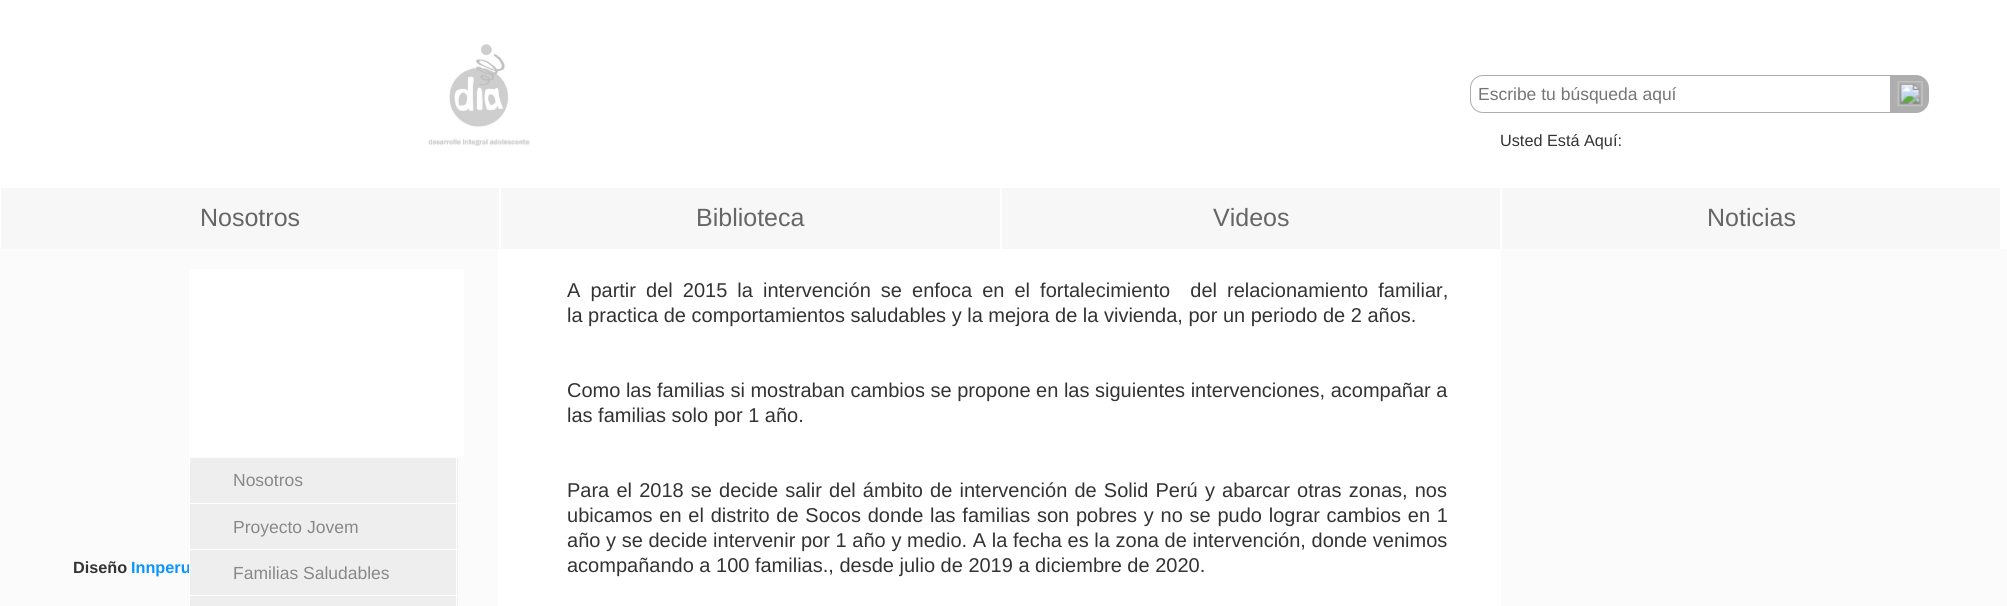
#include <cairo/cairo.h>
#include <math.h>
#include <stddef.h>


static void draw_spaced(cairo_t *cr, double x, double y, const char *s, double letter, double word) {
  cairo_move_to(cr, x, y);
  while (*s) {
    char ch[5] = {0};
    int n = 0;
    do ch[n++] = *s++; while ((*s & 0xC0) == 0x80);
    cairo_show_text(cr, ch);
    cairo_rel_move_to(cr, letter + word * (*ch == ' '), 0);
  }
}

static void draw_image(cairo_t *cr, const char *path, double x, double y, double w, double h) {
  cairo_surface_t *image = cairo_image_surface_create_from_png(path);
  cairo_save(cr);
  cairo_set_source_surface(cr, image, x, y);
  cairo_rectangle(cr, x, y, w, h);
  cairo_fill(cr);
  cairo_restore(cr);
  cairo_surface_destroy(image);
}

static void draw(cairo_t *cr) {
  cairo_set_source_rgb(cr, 251 / 255.0, 251 / 255.0, 251 / 255.0);
  cairo_paint(cr);
  cairo_set_source_rgb(cr, 1, 1, 1);
  cairo_rectangle(cr, 0, 0, 2007, 249);
  cairo_fill(cr);
  draw_image(cr, "images/1.png", 428, 44, 102, 102);
  cairo_new_path(cr);
  cairo_move_to(cr, 1483, 75.5);
  cairo_line_to(cr, 1890.5, 75.5);
  cairo_line_to(cr, 1890.5, 112.5);
  cairo_line_to(cr, 1483, 112.5);
  cairo_curve_to(cr, 1476, 112.5, 1470.5, 107, 1470.5, 100);
  cairo_line_to(cr, 1470.5, 88);
  cairo_curve_to(cr, 1470.5, 81, 1476, 75.5, 1483, 75.5);
  cairo_close_path(cr);
  cairo_set_source_rgb(cr, 174 / 255.0, 174 / 255.0, 174 / 255.0);
  cairo_set_line_width(cr, 1);
  cairo_stroke(cr);
  cairo_new_path(cr);
  cairo_move_to(cr, 1891, 75);
  cairo_line_to(cr, 1916, 75);
  cairo_curve_to(cr, 1923, 75, 1929, 81, 1929, 88);
  cairo_line_to(cr, 1929, 100);
  cairo_curve_to(cr, 1929, 107, 1923, 113, 1916, 113);
  cairo_line_to(cr, 1891, 113);
  cairo_close_path(cr);
  cairo_fill(cr);
  draw_image(cr, "images/2.png", 1897, 81, 26, 26);
  cairo_rectangle(cr, 1898.5, 81.5, 24, 24);
  cairo_set_source_rgb(cr, 192 / 255.0, 192 / 255.0, 192 / 255.0);
  cairo_stroke(cr);
  cairo_set_source_rgb(cr, 247 / 255.0, 247 / 255.0, 247 / 255.0);
  cairo_rectangle(cr, 1, 188, 498, 61);
  cairo_fill(cr);
  cairo_rectangle(cr, 501, 188, 499, 61);
  cairo_fill(cr);
  cairo_rectangle(cr, 1002, 188, 498, 61);
  cairo_fill(cr);
  cairo_rectangle(cr, 1502, 188, 498, 61);
  cairo_fill(cr);
  cairo_set_source_rgb(cr, 1, 1, 1);
  cairo_rectangle(cr, 189, 269, 275, 187);
  cairo_fill(cr);
  cairo_rectangle(cr, 189, 456, 269, 1);
  cairo_fill(cr);
  cairo_set_source_rgb(cr, 238 / 255.0, 238 / 255.0, 238 / 255.0);
  cairo_rectangle(cr, 190, 458, 268, 45);
  cairo_fill(cr);
  cairo_set_source_rgb(cr, 1, 1, 1);
  cairo_rectangle(cr, 456, 458, 1, 46);
  cairo_fill(cr);
  cairo_rectangle(cr, 189, 503, 269, 1);
  cairo_fill(cr);
  cairo_rectangle(cr, 189, 458, 1, 46);
  cairo_fill(cr);
  cairo_set_source_rgb(cr, 238 / 255.0, 238 / 255.0, 238 / 255.0);
  cairo_rectangle(cr, 190, 504, 268, 45);
  cairo_fill(cr);
  cairo_set_source_rgb(cr, 1, 1, 1);
  cairo_rectangle(cr, 456, 504, 1, 46);
  cairo_fill(cr);
  cairo_rectangle(cr, 189, 549, 269, 1);
  cairo_fill(cr);
  cairo_rectangle(cr, 189, 504, 1, 46);
  cairo_fill(cr);
  cairo_set_source_rgb(cr, 238 / 255.0, 238 / 255.0, 238 / 255.0);
  cairo_rectangle(cr, 190, 550, 268, 45);
  cairo_fill(cr);
  cairo_set_source_rgb(cr, 1, 1, 1);
  cairo_rectangle(cr, 456, 550, 1, 46);
  cairo_fill(cr);
  cairo_rectangle(cr, 189, 595, 269, 1);
  cairo_fill(cr);
  cairo_set_source_rgb(cr, 238 / 255.0, 238 / 255.0, 238 / 255.0);
  cairo_rectangle(cr, 190, 596, 268, 10);
  cairo_fill(cr);
  cairo_set_source_rgb(cr, 1, 1, 1);
  cairo_rectangle(cr, 456, 596, 1, 10);
  cairo_fill(cr);
  cairo_rectangle(cr, 498, 249, 1003, 357);
  cairo_fill(cr);
  cairo_select_font_face(cr, "Liberation Sans", CAIRO_FONT_SLANT_NORMAL, CAIRO_FONT_WEIGHT_NORMAL);
  cairo_set_font_size(cr, 17.5);
  cairo_set_source_rgb(cr, 117 / 255.0, 117 / 255.0, 117 / 255.0);
  cairo_move_to(cr, 1478, 100);
  cairo_show_text(cr, "Escribe tu búsqueda aquí");
  cairo_set_font_size(cr, 16.25);
  cairo_set_source_rgb(cr, 51 / 255.0, 51 / 255.0, 51 / 255.0);
  cairo_move_to(cr, 1500, 146);
  cairo_show_text(cr, "Usted Está Aquí:");
  cairo_set_font_size(cr, 25);
  cairo_set_source_rgb(cr, 102 / 255.0, 102 / 255.0, 102 / 255.0);
  cairo_move_to(cr, 200, 226);
  cairo_show_text(cr, "Nosotros");
  cairo_move_to(cr, 696, 226);
  cairo_show_text(cr, "Biblioteca");
  cairo_move_to(cr, 1213, 226);
  cairo_show_text(cr, "Videos");
  cairo_move_to(cr, 1707, 226);
  cairo_show_text(cr, "Noticias");
  cairo_select_font_face(cr, "Liberation Sans", CAIRO_FONT_SLANT_NORMAL, CAIRO_FONT_WEIGHT_BOLD);
  cairo_set_font_size(cr, 16.25);
  cairo_set_source_rgb(cr, 51 / 255.0, 51 / 255.0, 51 / 255.0);
  cairo_move_to(cr, 73, 573);
  cairo_show_text(cr, "Diseño");
  cairo_set_source_rgb(cr, 10 / 255.0, 148 / 255.0, 1);
  cairo_move_to(cr, 131, 573);
  cairo_show_text(cr, "Innperu");
  cairo_select_font_face(cr, "Liberation Sans", CAIRO_FONT_SLANT_NORMAL, CAIRO_FONT_WEIGHT_NORMAL);
  cairo_set_font_size(cr, 17.5);
  cairo_set_source_rgb(cr, 136 / 255.0, 136 / 255.0, 136 / 255.0);
  cairo_move_to(cr, 233, 486);
  cairo_show_text(cr, "Nosotros");
  cairo_move_to(cr, 233, 533);
  cairo_show_text(cr, "Proyecto Jovem");
  cairo_set_source_rgb(cr, 1, 1, 1);
  cairo_rectangle(cr, 189, 550, 1, 56);
  cairo_fill(cr);
  cairo_set_source_rgb(cr, 136 / 255.0, 136 / 255.0, 136 / 255.0);
  cairo_move_to(cr, 233, 579);
  cairo_show_text(cr, "Familias Saludables");
  cairo_set_font_size(cr, 20);
  cairo_set_source_rgb(cr, 51 / 255.0, 51 / 255.0, 51 / 255.0);
  draw_spaced(cr, 567, 297, "A partir del 2015 la intervención se enfoca en el fortalecimiento  del relacionamiento familiar,", 0, 4.5);
  cairo_move_to(cr, 567, 322);
  cairo_show_text(cr, "la practica de comportamientos saludables y la mejora de la vivienda, por un periodo de 2 años.");
  cairo_move_to(cr, 567, 397);
  cairo_show_text(cr, "Como las familias si mostraban cambios se propone en las siguientes intervenciones, acompañar a");
  cairo_move_to(cr, 567, 422);
  cairo_show_text(cr, "las familias solo por 1 año.");
  draw_spaced(cr, 567, 497, "Para el 2018 se decide salir del ámbito de intervención de Solid Perú y abarcar otras zonas, nos", 0, 1.6);
  draw_spaced(cr, 567, 522, "ubicamos en el distrito de Socos donde las familias son pobres y no se pudo lograr cambios en 1", 0, 1.2);
  draw_spaced(cr, 567, 547, "año y se decide intervenir por 1 año y medio. A la fecha es la zona de intervención, donde venimos", 0, 0.1);
  cairo_move_to(cr, 567, 572);
  cairo_show_text(cr, "acompañando a 100 familias., desde julio de 2019 a diciembre de 2020.");
}

int main(void) {
  cairo_surface_t *surface = cairo_image_surface_create(CAIRO_FORMAT_RGB24, 2007, 606);
  cairo_t *cr = cairo_create(surface);
  cairo_font_options_t *options = cairo_font_options_create();
  cairo_font_options_set_hint_metrics(options, CAIRO_HINT_METRICS_OFF);
  cairo_font_options_set_hint_style(options, CAIRO_HINT_STYLE_NONE);
  cairo_set_font_options(cr, options);
  cairo_set_miter_limit(cr, 4);
  draw(cr);
  cairo_surface_write_to_png(surface, "out.png");
  cairo_font_options_destroy(options);
  cairo_destroy(cr);
  cairo_surface_destroy(surface);
  return 0;
}
